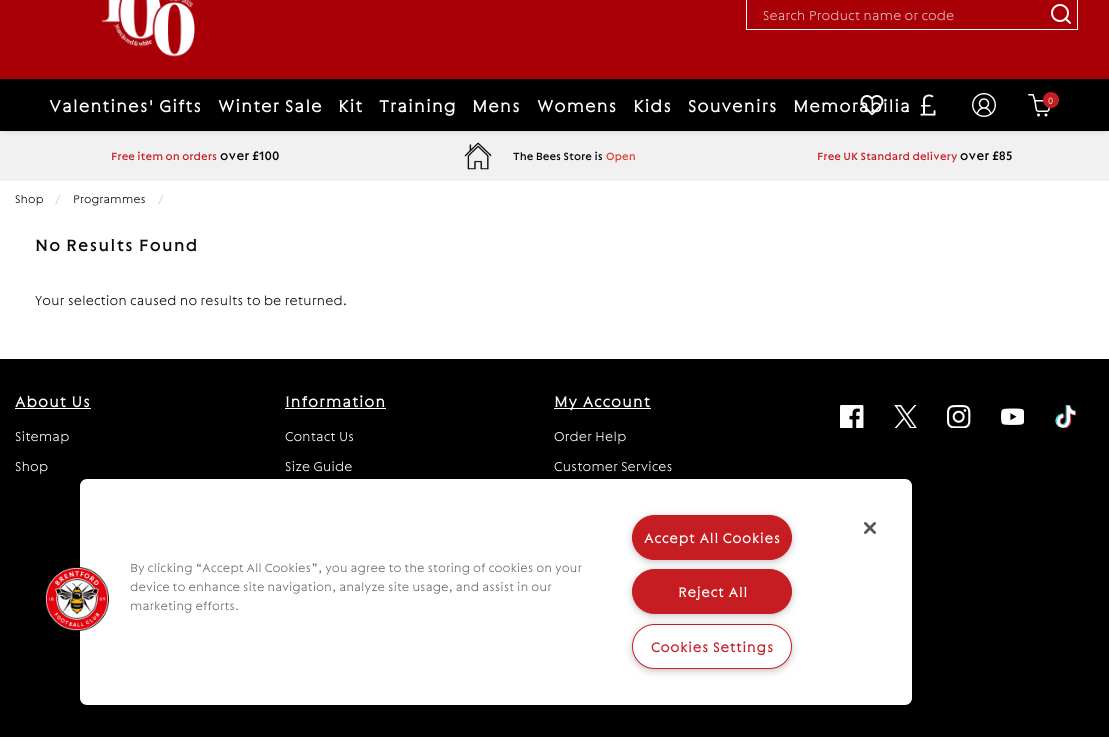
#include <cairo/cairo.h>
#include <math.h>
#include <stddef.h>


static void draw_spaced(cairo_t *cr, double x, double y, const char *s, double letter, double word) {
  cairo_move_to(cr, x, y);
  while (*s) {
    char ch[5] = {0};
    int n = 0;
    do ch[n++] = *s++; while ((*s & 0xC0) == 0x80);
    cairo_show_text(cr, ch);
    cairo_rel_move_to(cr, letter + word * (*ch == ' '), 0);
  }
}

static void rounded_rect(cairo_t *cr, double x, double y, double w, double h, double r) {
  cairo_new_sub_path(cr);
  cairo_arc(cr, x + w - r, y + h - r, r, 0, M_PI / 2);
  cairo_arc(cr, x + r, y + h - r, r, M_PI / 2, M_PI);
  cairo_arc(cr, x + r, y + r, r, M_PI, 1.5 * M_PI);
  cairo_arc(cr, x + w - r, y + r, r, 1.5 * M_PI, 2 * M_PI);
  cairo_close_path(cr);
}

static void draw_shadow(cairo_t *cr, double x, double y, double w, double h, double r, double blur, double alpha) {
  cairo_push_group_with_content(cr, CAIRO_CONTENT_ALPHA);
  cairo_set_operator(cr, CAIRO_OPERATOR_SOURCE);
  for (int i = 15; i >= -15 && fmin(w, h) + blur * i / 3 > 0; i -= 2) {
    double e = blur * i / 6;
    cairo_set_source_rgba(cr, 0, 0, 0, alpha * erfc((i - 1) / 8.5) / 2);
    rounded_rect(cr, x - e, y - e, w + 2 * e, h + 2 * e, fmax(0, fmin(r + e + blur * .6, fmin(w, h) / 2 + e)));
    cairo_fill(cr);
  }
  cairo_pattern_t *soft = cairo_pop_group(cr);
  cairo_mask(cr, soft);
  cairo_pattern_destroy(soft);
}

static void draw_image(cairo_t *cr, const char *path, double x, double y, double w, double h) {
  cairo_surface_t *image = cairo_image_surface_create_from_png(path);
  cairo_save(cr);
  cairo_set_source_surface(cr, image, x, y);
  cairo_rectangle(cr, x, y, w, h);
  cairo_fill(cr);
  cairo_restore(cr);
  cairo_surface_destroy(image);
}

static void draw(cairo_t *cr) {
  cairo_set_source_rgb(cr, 1, 1, 1);
  cairo_paint(cr);
  cairo_set_source_rgb(cr, 241 / 255.0, 241 / 255.0, 241 / 255.0);
  cairo_rectangle(cr, 0, 131, 1109, 50);
  cairo_fill(cr);
  cairo_set_source_rgb(cr, 0, 0, 0);
  draw_shadow(cr, 5, -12, 1099, 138, 0, 4, 1);
  cairo_set_source_rgb(cr, 168 / 255.0, 0, 6 / 255.0);
  cairo_rectangle(cr, 0, 0, 1109, 79);
  cairo_fill(cr);
  draw_image(cr, "images/1.png", 101, 0, 94, 57);
  cairo_set_source_rgb(cr, 1, 1, 1);
  cairo_rectangle(cr, 746, 29, 300, 1);
  cairo_fill(cr);
  cairo_rectangle(cr, 746, 0, 1, 30);
  cairo_fill(cr);
  cairo_rectangle(cr, 1077, 0, 1, 30);
  cairo_fill(cr);
  cairo_rectangle(cr, 1046, 29, 32, 1);
  cairo_fill(cr);
  cairo_arc(cr, 1060, 13, 8, 0, 2 * M_PI);
  cairo_stroke(cr);
  cairo_new_path(cr);
  cairo_move_to(cr, 1070, 23);
  cairo_line_to(cr, 1065.5, 18.5);
  cairo_set_line_cap(cr, CAIRO_LINE_CAP_ROUND);
  cairo_set_line_join(cr, CAIRO_LINE_JOIN_ROUND);
  cairo_stroke(cr);
  cairo_set_source_rgb(cr, 0, 0, 0);
  cairo_rectangle(cr, 0, 79, 1109, 52);
  cairo_fill(cr);
  draw_image(cr, "images/2.png", 860, 95, 24, 21);
  draw_image(cr, "images/3.png", 920, 94, 16, 22);
  draw_image(cr, "images/4.png", 972, 93, 24, 24);
  draw_image(cr, "images/5.png", 1028, 94, 23, 23);
  cairo_set_source_rgb(cr, 198 / 255.0, 29 / 255.0, 35 / 255.0);
  cairo_arc(cr, 1051, 100, 8, 0, 2 * M_PI);
  cairo_fill(cr);
  draw_image(cr, "images/6.png", 464, 142, 28, 28);
  cairo_set_source_rgb(cr, 0, 0, 0);
  cairo_rectangle(cr, 0, 359, 1109, 378);
  cairo_fill(cr);
  cairo_set_source_rgb(cr, 1, 1, 1);
  cairo_rectangle(cr, 15, 408, 76, 1);
  cairo_fill(cr);
  cairo_rectangle(cr, 285, 408, 101, 1);
  cairo_fill(cr);
  cairo_rectangle(cr, 554, 408, 97, 1);
  cairo_fill(cr);
  draw_image(cr, "images/7.png", 840, 405, 24, 23);
  draw_image(cr, "images/8.png", 894, 405, 23, 23);
  draw_image(cr, "images/9.png", 947, 405, 24, 23);
  draw_image(cr, "images/10.png", 1001, 408, 23, 17);
  draw_image(cr, "images/11.png", 1055, 405, 22, 23);
  rounded_rect(cr, 80, 479, 832, 226, 7);
  cairo_fill(cr);
  draw_image(cr, "images/12.png", 45, 567, 64, 64);
  draw_image(cr, "images/13.png", 864, 522, 12, 12);
  cairo_set_source_rgb(cr, 153 / 255.0, 153 / 255.0, 153 / 255.0);
  draw_shadow(cr, 635, 520, 154, 39, 19.5, 5, 1);
  cairo_set_source_rgb(cr, 198 / 255.0, 29 / 255.0, 35 / 255.0);
  rounded_rect(cr, 632.5, 515.5, 159, 44, 22);
  cairo_fill_preserve(cr);
  cairo_set_line_width(cr, 1);
  cairo_set_line_cap(cr, CAIRO_LINE_CAP_BUTT);
  cairo_set_line_join(cr, CAIRO_LINE_JOIN_MITER);
  cairo_stroke(cr);
  cairo_set_source_rgb(cr, 153 / 255.0, 153 / 255.0, 153 / 255.0);
  draw_shadow(cr, 635, 574, 154, 39, 19.5, 5, 1);
  cairo_set_source_rgb(cr, 198 / 255.0, 29 / 255.0, 35 / 255.0);
  rounded_rect(cr, 632.5, 569.5, 159, 44, 22);
  cairo_fill_preserve(cr);
  cairo_stroke(cr);
  cairo_set_source_rgb(cr, 153 / 255.0, 153 / 255.0, 153 / 255.0);
  draw_shadow(cr, 635, 629, 154, 39, 19.5, 5, 1);
  cairo_set_source_rgb(cr, 1, 1, 1);
  rounded_rect(cr, 632.5, 624.5, 159, 44, 22);
  cairo_fill_preserve(cr);
  cairo_set_source_rgb(cr, 198 / 255.0, 29 / 255.0, 35 / 255.0);
  cairo_stroke(cr);
  cairo_select_font_face(cr, "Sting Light", CAIRO_FONT_SLANT_NORMAL, CAIRO_FONT_WEIGHT_NORMAL);
  cairo_set_font_size(cr, 14);
  cairo_set_source_rgb(cr, 233 / 255.0, 191 / 255.0, 193 / 255.0);
  cairo_move_to(cr, 763, 20);
  cairo_show_text(cr, "Search Product name or code");
  cairo_select_font_face(cr, "Sting", CAIRO_FONT_SLANT_NORMAL, CAIRO_FONT_WEIGHT_BOLD);
  cairo_set_font_size(cr, 18);
  cairo_set_source_rgb(cr, 1, 1, 1);
  draw_spaced(cr, 49, 112, "Valentines' Gifts", 1, 0);
  draw_spaced(cr, 218, 112, "Winter Sale", 1, 0);
  draw_spaced(cr, 338, 112, "Kit", 1, 0);
  draw_spaced(cr, 379, 112, "Training", 1, 0);
  draw_spaced(cr, 472, 112, "Mens", 1, 0);
  draw_spaced(cr, 537, 112, "Womens", 1, 0);
  draw_spaced(cr, 633, 112, "Kids", 1, 0);
  draw_spaced(cr, 688, 112, "Souvenirs", 1, 0);
  draw_spaced(cr, 793, 112, "Memorabilia", 1, 0);
  cairo_select_font_face(cr, "Sting Light", CAIRO_FONT_SLANT_NORMAL, CAIRO_FONT_WEIGHT_NORMAL);
  cairo_set_font_size(cr, 10);
  cairo_move_to(cr, 1048, 104);
  cairo_show_text(cr, "0");
  cairo_select_font_face(cr, "Sting", CAIRO_FONT_SLANT_NORMAL, CAIRO_FONT_WEIGHT_NORMAL);
  cairo_set_font_size(cr, 11.5);
  cairo_set_source_rgb(cr, 198 / 255.0, 29 / 255.0, 36 / 255.0);
  cairo_move_to(cr, 111, 160);
  cairo_show_text(cr, "Free item on orders");
  cairo_set_font_size(cr, 13.5);
  cairo_set_source_rgb(cr, 0, 0, 0);
  cairo_move_to(cr, 220, 160);
  cairo_show_text(cr, "over £100");
  cairo_set_font_size(cr, 11.5);
  cairo_move_to(cr, 513, 160);
  cairo_show_text(cr, "The Bees Store is");
  cairo_set_source_rgb(cr, 224 / 255.0, 62 / 255.0, 45 / 255.0);
  cairo_move_to(cr, 606, 160);
  cairo_show_text(cr, "Open");
  cairo_set_source_rgb(cr, 198 / 255.0, 29 / 255.0, 36 / 255.0);
  cairo_move_to(cr, 817, 160);
  cairo_show_text(cr, "Free UK Standard delivery");
  cairo_set_font_size(cr, 13.5);
  cairo_set_source_rgb(cr, 0, 0, 0);
  cairo_move_to(cr, 960, 160);
  cairo_show_text(cr, "over £85");
  cairo_select_font_face(cr, "Sting Light", CAIRO_FONT_SLANT_NORMAL, CAIRO_FONT_WEIGHT_NORMAL);
  cairo_set_font_size(cr, 12);
  cairo_move_to(cr, 15, 203);
  cairo_show_text(cr, "Shop");
  cairo_set_source_rgb(cr, 202 / 255.0, 202 / 255.0, 202 / 255.0);
  cairo_move_to(cr, 55, 203);
  cairo_show_text(cr, "/");
  cairo_set_source_rgb(cr, 0, 0, 0);
  cairo_move_to(cr, 73, 203);
  cairo_show_text(cr, "Programmes");
  cairo_set_source_rgb(cr, 202 / 255.0, 202 / 255.0, 202 / 255.0);
  cairo_move_to(cr, 158, 203);
  cairo_show_text(cr, "/");
  cairo_select_font_face(cr, "Sting", CAIRO_FONT_SLANT_NORMAL, CAIRO_FONT_WEIGHT_NORMAL);
  cairo_set_font_size(cr, 18);
  cairo_set_source_rgb(cr, 10 / 255.0, 10 / 255.0, 10 / 255.0);
  draw_spaced(cr, 35, 251, "No Results Found", 1, 0);
  cairo_select_font_face(cr, "Sting Light", CAIRO_FONT_SLANT_NORMAL, CAIRO_FONT_WEIGHT_NORMAL);
  cairo_set_font_size(cr, 14);
  cairo_move_to(cr, 35, 305);
  cairo_show_text(cr, "Your selection caused no results to be returned.");
  cairo_select_font_face(cr, "Sting", CAIRO_FONT_SLANT_NORMAL, CAIRO_FONT_WEIGHT_BOLD);
  cairo_set_font_size(cr, 16);
  cairo_set_source_rgb(cr, 1, 1, 1);
  draw_spaced(cr, 15, 407, "About Us", 1, 0);
  cairo_select_font_face(cr, "Sting Light", CAIRO_FONT_SLANT_NORMAL, CAIRO_FONT_WEIGHT_NORMAL);
  cairo_set_font_size(cr, 14);
  cairo_move_to(cr, 15, 441);
  cairo_show_text(cr, "Sitemap");
  cairo_move_to(cr, 15, 471);
  cairo_show_text(cr, "Shop");
  cairo_select_font_face(cr, "Sting", CAIRO_FONT_SLANT_NORMAL, CAIRO_FONT_WEIGHT_BOLD);
  cairo_set_font_size(cr, 16);
  draw_spaced(cr, 285, 407, "Information", 1, 0);
  cairo_select_font_face(cr, "Sting Light", CAIRO_FONT_SLANT_NORMAL, CAIRO_FONT_WEIGHT_NORMAL);
  cairo_set_font_size(cr, 14);
  cairo_move_to(cr, 285, 441);
  cairo_show_text(cr, "Contact Us");
  cairo_move_to(cr, 285, 471);
  cairo_show_text(cr, "Size Guide");
  cairo_select_font_face(cr, "Sting", CAIRO_FONT_SLANT_NORMAL, CAIRO_FONT_WEIGHT_BOLD);
  cairo_set_font_size(cr, 16);
  draw_spaced(cr, 554, 407, "My Account", 1, 0);
  cairo_select_font_face(cr, "Sting Light", CAIRO_FONT_SLANT_NORMAL, CAIRO_FONT_WEIGHT_NORMAL);
  cairo_set_font_size(cr, 14);
  cairo_move_to(cr, 554, 441);
  cairo_show_text(cr, "Order Help");
  cairo_move_to(cr, 554, 471);
  cairo_show_text(cr, "Customer Services");
  cairo_set_font_size(cr, 12.8);
  cairo_set_source_rgb(cr, 102 / 255.0, 102 / 255.0, 102 / 255.0);
  cairo_move_to(cr, 130, 572);
  cairo_show_text(cr, "By clicking “Accept All Cookies”, you agree to the storing of cookies on your");
  cairo_move_to(cr, 130, 591);
  cairo_show_text(cr, "device to enhance site navigation, analyze site usage, and assist in our");
  cairo_move_to(cr, 130, 610);
  cairo_show_text(cr, "marketing efforts.");
  cairo_select_font_face(cr, "Sting", CAIRO_FONT_SLANT_NORMAL, CAIRO_FONT_WEIGHT_BOLD);
  cairo_set_font_size(cr, 14.5);
  cairo_set_source_rgb(cr, 1, 1, 1);
  draw_spaced(cr, 644, 543, "Accept All Cookies", 0.75, 0);
  draw_spaced(cr, 678, 597, "Reject All", 0.75, 0);
  cairo_set_source_rgb(cr, 198 / 255.0, 29 / 255.0, 36 / 255.0);
  draw_spaced(cr, 651, 652, "Cookies Settings", 0.75, 0);
}

int main(void) {
  cairo_surface_t *surface = cairo_image_surface_create(CAIRO_FORMAT_RGB24, 1109, 737);
  cairo_t *cr = cairo_create(surface);
  cairo_font_options_t *options = cairo_font_options_create();
  cairo_font_options_set_hint_metrics(options, CAIRO_HINT_METRICS_OFF);
  cairo_font_options_set_hint_style(options, CAIRO_HINT_STYLE_NONE);
  cairo_set_font_options(cr, options);
  cairo_set_miter_limit(cr, 4);
  draw(cr);
  cairo_surface_write_to_png(surface, "out.png");
  cairo_font_options_destroy(options);
  cairo_destroy(cr);
  cairo_surface_destroy(surface);
  return 0;
}
